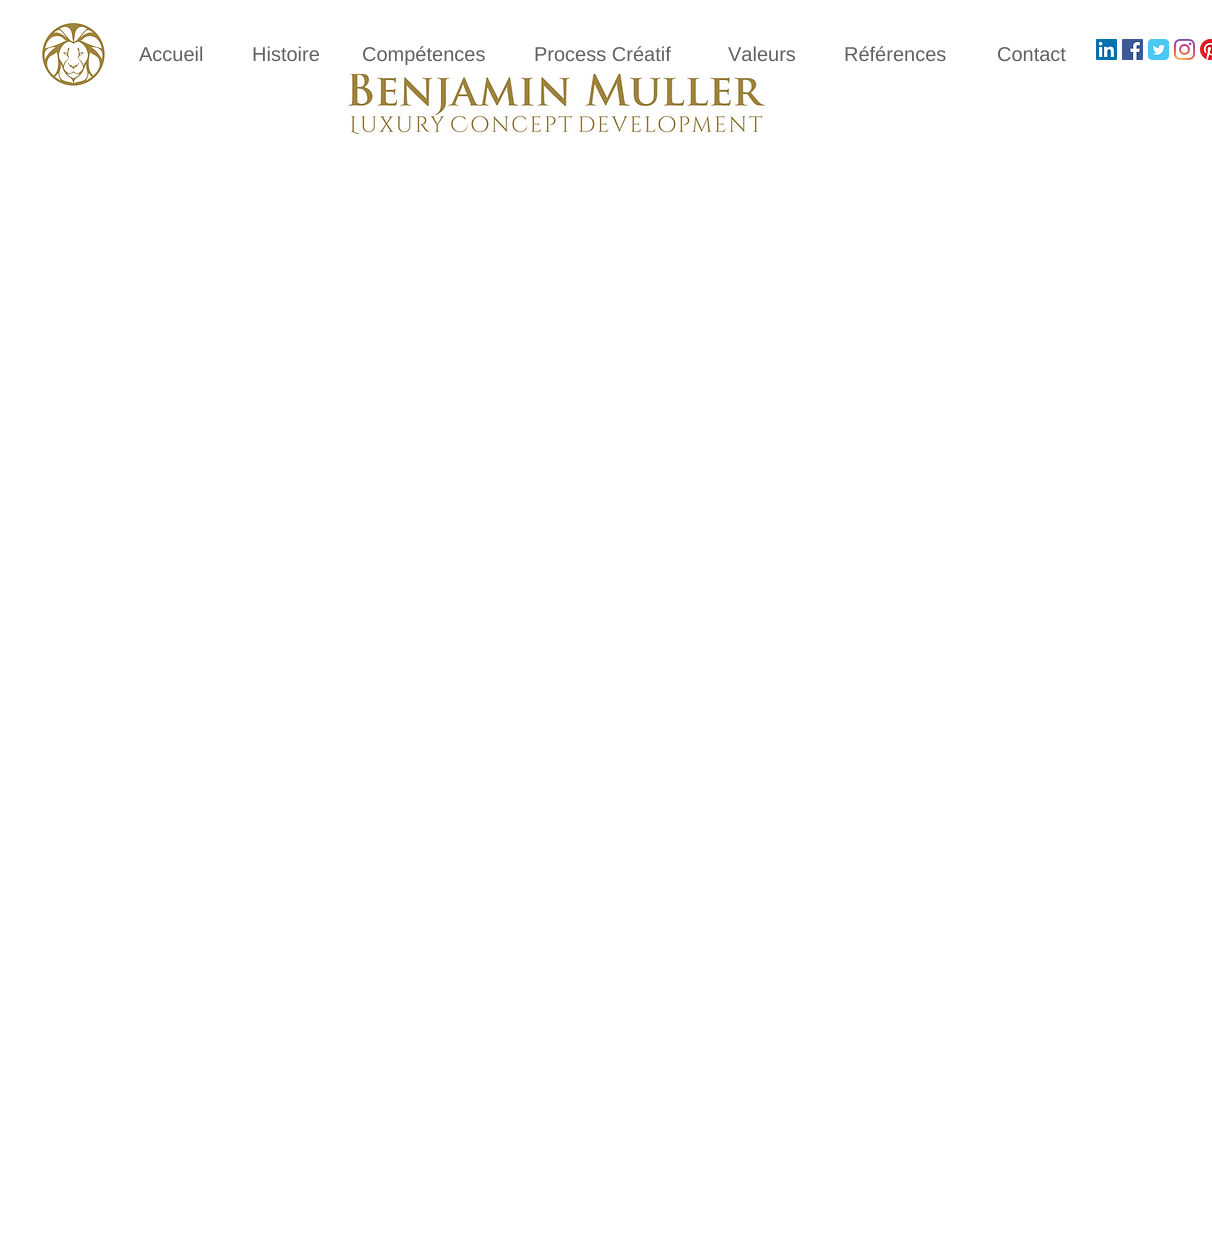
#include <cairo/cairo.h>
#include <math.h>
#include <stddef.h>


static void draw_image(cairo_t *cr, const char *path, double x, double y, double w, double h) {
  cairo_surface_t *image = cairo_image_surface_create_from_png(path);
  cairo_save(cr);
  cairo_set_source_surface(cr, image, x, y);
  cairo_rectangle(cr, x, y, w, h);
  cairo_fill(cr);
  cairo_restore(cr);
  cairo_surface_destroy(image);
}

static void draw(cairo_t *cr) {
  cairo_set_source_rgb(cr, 1, 1, 1);
  cairo_paint(cr);
  draw_image(cr, "images/1.png", 42, 23, 63, 63);
  draw_image(cr, "images/2.png", 1096, 39, 21, 21);
  draw_image(cr, "images/3.png", 1122, 39, 21, 21);
  draw_image(cr, "images/4.png", 1148, 39, 21, 21);
  draw_image(cr, "images/5.png", 1174, 39, 21, 21);
  draw_image(cr, "images/6.png", 1200, 39, 12, 21);
  draw_image(cr, "images/7.png", 348, 74, 417, 60);
  cairo_select_font_face(cr, "Liberation Sans", CAIRO_FONT_SLANT_NORMAL, CAIRO_FONT_WEIGHT_NORMAL);
  cairo_set_font_size(cr, 20);
  cairo_set_source_rgb(cr, 96 / 255.0, 96 / 255.0, 96 / 255.0);
  cairo_move_to(cr, 139, 61);
  cairo_show_text(cr, "Accueil");
  cairo_move_to(cr, 252, 61);
  cairo_show_text(cr, "Histoire");
  cairo_move_to(cr, 362, 61);
  cairo_show_text(cr, "Compétences");
  cairo_move_to(cr, 534, 61);
  cairo_show_text(cr, "Process Créatif");
  cairo_move_to(cr, 728, 61);
  cairo_show_text(cr, "Valeurs");
  cairo_move_to(cr, 844, 61);
  cairo_show_text(cr, "Références");
  cairo_move_to(cr, 997, 61);
  cairo_show_text(cr, "Contact");
}

int main(void) {
  cairo_surface_t *surface = cairo_image_surface_create(CAIRO_FORMAT_RGB24, 1212, 1246);
  cairo_t *cr = cairo_create(surface);
  cairo_font_options_t *options = cairo_font_options_create();
  cairo_font_options_set_hint_metrics(options, CAIRO_HINT_METRICS_OFF);
  cairo_font_options_set_hint_style(options, CAIRO_HINT_STYLE_NONE);
  cairo_set_font_options(cr, options);
  cairo_set_miter_limit(cr, 4);
  draw(cr);
  cairo_surface_write_to_png(surface, "out.png");
  cairo_font_options_destroy(options);
  cairo_destroy(cr);
  cairo_surface_destroy(surface);
  return 0;
}
